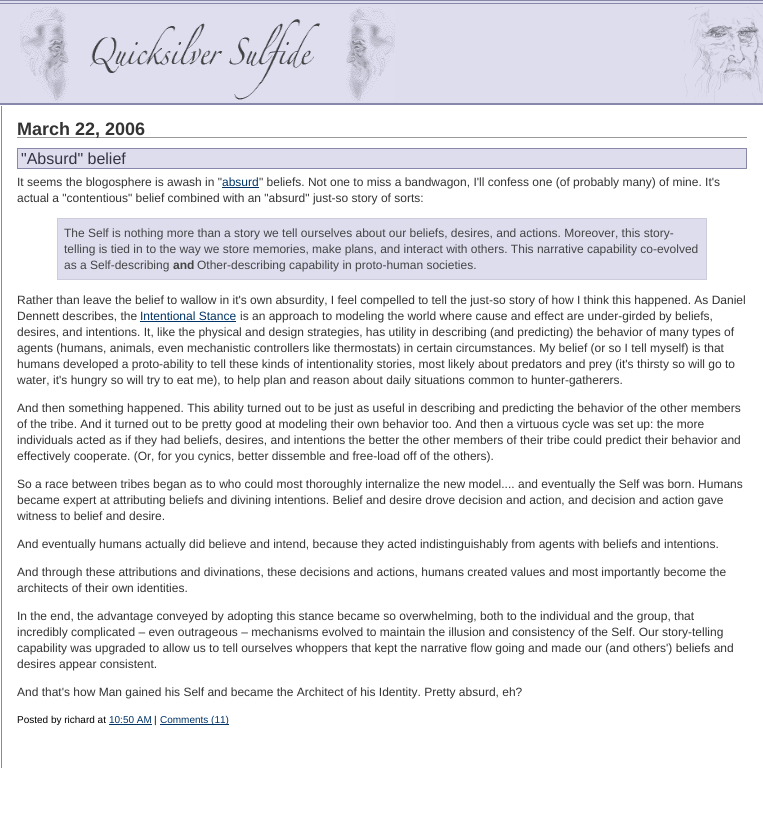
#include <cairo/cairo.h>
#include <math.h>
#include <stddef.h>


static void draw_image(cairo_t *cr, const char *path, double x, double y, double w, double h) {
  cairo_surface_t *image = cairo_image_surface_create_from_png(path);
  cairo_save(cr);
  cairo_set_source_surface(cr, image, x, y);
  cairo_rectangle(cr, x, y, w, h);
  cairo_fill(cr);
  cairo_restore(cr);
  cairo_surface_destroy(image);
}

static void draw(cairo_t *cr) {
  cairo_set_source_rgb(cr, 1, 1, 1);
  cairo_paint(cr);
  cairo_set_source_rgb(cr, 221 / 255.0, 221 / 255.0, 238 / 255.0);
  cairo_rectangle(cr, 0, 1, 763, 102);
  cairo_fill(cr);
  cairo_set_source_rgb(cr, 136 / 255.0, 136 / 255.0, 170 / 255.0);
  cairo_rectangle(cr, 0, 0, 763, 1);
  cairo_fill(cr);
  cairo_rectangle(cr, 0, 3, 763, 1);
  cairo_fill(cr);
  cairo_rectangle(cr, 0, 103, 763, 2);
  cairo_fill(cr);
  draw_image(cr, "images/1.png", 20, 7, 375, 95);
  draw_image(cr, "images/2.png", 684, 6, 79, 97);
  cairo_rectangle(cr, 1, 106, 1, 662);
  cairo_fill(cr);
  cairo_set_source_rgb(cr, 153 / 255.0, 153 / 255.0, 153 / 255.0);
  cairo_rectangle(cr, 17, 137, 730, 1);
  cairo_fill(cr);
  cairo_set_source_rgb(cr, 221 / 255.0, 221 / 255.0, 238 / 255.0);
  cairo_rectangle(cr, 17.5, 148.5, 729, 20);
  cairo_fill_preserve(cr);
  cairo_set_source_rgb(cr, 136 / 255.0, 136 / 255.0, 170 / 255.0);
  cairo_set_line_width(cr, 1);
  cairo_stroke(cr);
  cairo_set_source_rgb(cr, 0, 51 / 255.0, 102 / 255.0);
  cairo_rectangle(cr, 222, 187, 37, 1);
  cairo_fill(cr);
  cairo_set_source_rgb(cr, 221 / 255.0, 221 / 255.0, 238 / 255.0);
  cairo_rectangle(cr, 57.5, 218.5, 649, 61);
  cairo_fill_preserve(cr);
  cairo_set_source_rgb(cr, 204 / 255.0, 204 / 255.0, 221 / 255.0);
  cairo_stroke(cr);
  cairo_set_source_rgb(cr, 0, 51 / 255.0, 102 / 255.0);
  cairo_rectangle(cr, 140, 321, 96, 1);
  cairo_fill(cr);
  cairo_rectangle(cr, 109, 724, 43, 1);
  cairo_fill(cr);
  cairo_rectangle(cr, 160, 724, 69, 1);
  cairo_fill(cr);
  cairo_select_font_face(cr, "Liberation Sans", CAIRO_FONT_SLANT_NORMAL, CAIRO_FONT_WEIGHT_BOLD);
  cairo_set_font_size(cr, 18);
  cairo_set_source_rgb(cr, 51 / 255.0, 51 / 255.0, 51 / 255.0);
  cairo_move_to(cr, 17, 135);
  cairo_show_text(cr, "March 22, 2006");
  cairo_select_font_face(cr, "Liberation Sans", CAIRO_FONT_SLANT_NORMAL, CAIRO_FONT_WEIGHT_NORMAL);
  cairo_set_font_size(cr, 16);
  cairo_set_source_rgb(cr, 51 / 255.0, 51 / 255.0, 68 / 255.0);
  cairo_move_to(cr, 21, 164);
  cairo_show_text(cr, "\"Absurd\" belief");
  cairo_set_font_size(cr, 12);
  cairo_set_source_rgb(cr, 51 / 255.0, 51 / 255.0, 51 / 255.0);
  cairo_move_to(cr, 17, 186);
  cairo_show_text(cr, "It seems the blogosphere is awash in \"");
  cairo_set_source_rgb(cr, 0, 51 / 255.0, 102 / 255.0);
  cairo_move_to(cr, 222, 186);
  cairo_show_text(cr, "absurd");
  cairo_set_source_rgb(cr, 51 / 255.0, 51 / 255.0, 51 / 255.0);
  cairo_move_to(cr, 259, 186);
  cairo_show_text(cr, "\" beliefs. Not one to miss a bandwagon, I'll confess one (of probably many) of mine. It's");
  cairo_move_to(cr, 17, 202);
  cairo_show_text(cr, "actual a \"contentious\" belief combined with an \"absurd\" just-so story of sorts:");
  cairo_set_source_rgb(cr, 68 / 255.0, 68 / 255.0, 68 / 255.0);
  cairo_move_to(cr, 64, 237);
  cairo_show_text(cr, "The Self is nothing more than a story we tell ourselves about our beliefs, desires, and actions. Moreover, this story-");
  cairo_move_to(cr, 64, 253);
  cairo_show_text(cr, "telling is tied in to the way we store memories, make plans, and interact with others. This narrative capability co-evolved");
  cairo_move_to(cr, 64, 269);
  cairo_show_text(cr, "as a Self-describing");
  cairo_select_font_face(cr, "Liberation Sans", CAIRO_FONT_SLANT_NORMAL, CAIRO_FONT_WEIGHT_BOLD);
  cairo_move_to(cr, 173, 269);
  cairo_show_text(cr, "and");
  cairo_select_font_face(cr, "Liberation Sans", CAIRO_FONT_SLANT_NORMAL, CAIRO_FONT_WEIGHT_NORMAL);
  cairo_move_to(cr, 197, 269);
  cairo_show_text(cr, "Other-describing capability in proto-human societies.");
  cairo_set_source_rgb(cr, 51 / 255.0, 51 / 255.0, 51 / 255.0);
  cairo_move_to(cr, 17, 304);
  cairo_show_text(cr, "Rather than leave the belief to wallow in it's own absurdity, I feel compelled to tell the just-so story of how I think this happened. As Daniel");
  cairo_move_to(cr, 17, 320);
  cairo_show_text(cr, "Dennett describes, the");
  cairo_set_source_rgb(cr, 0, 51 / 255.0, 102 / 255.0);
  cairo_move_to(cr, 140, 320);
  cairo_show_text(cr, "Intentional Stance");
  cairo_set_source_rgb(cr, 51 / 255.0, 51 / 255.0, 51 / 255.0);
  cairo_move_to(cr, 240, 320);
  cairo_show_text(cr, "is an approach to modeling the world where cause and effect are under-girded by beliefs,");
  cairo_move_to(cr, 17, 336);
  cairo_show_text(cr, "desires, and intentions. It, like the physical and design strategies, has utility in describing (and predicting) the behavior of many types of");
  cairo_move_to(cr, 17, 352);
  cairo_show_text(cr, "agents (humans, animals, even mechanistic controllers like thermostats) in certain circumstances. My belief (or so I tell myself) is that");
  cairo_move_to(cr, 17, 368);
  cairo_show_text(cr, "humans developed a proto-ability to tell these kinds of intentionality stories, most likely about predators and prey (it's thirsty so will go to");
  cairo_move_to(cr, 17, 384);
  cairo_show_text(cr, "water, it's hungry so will try to eat me), to help plan and reason about daily situations common to hunter-gatherers.");
  cairo_move_to(cr, 17, 412);
  cairo_show_text(cr, "And then something happened. This ability turned out to be just as useful in describing and predicting the behavior of the other members");
  cairo_move_to(cr, 17, 428);
  cairo_show_text(cr, "of the tribe. And it turned out to be pretty good at modeling their own behavior too. And then a virtuous cycle was set up: the more");
  cairo_move_to(cr, 17, 444);
  cairo_show_text(cr, "individuals acted as if they had beliefs, desires, and intentions the better the other members of their tribe could predict their behavior and");
  cairo_move_to(cr, 17, 460);
  cairo_show_text(cr, "effectively cooperate. (Or, for you cynics, better dissemble and free-load off of the others).");
  cairo_move_to(cr, 17, 488);
  cairo_show_text(cr, "So a race between tribes began as to who could most thoroughly internalize the new model.... and eventually the Self was born. Humans");
  cairo_move_to(cr, 17, 504);
  cairo_show_text(cr, "became expert at attributing beliefs and divining intentions. Belief and desire drove decision and action, and decision and action gave");
  cairo_move_to(cr, 17, 520);
  cairo_show_text(cr, "witness to belief and desire.");
  cairo_move_to(cr, 17, 548);
  cairo_show_text(cr, "And eventually humans actually did believe and intend, because they acted indistinguishably from agents with beliefs and intentions.");
  cairo_move_to(cr, 17, 576);
  cairo_show_text(cr, "And through these attributions and divinations, these decisions and actions, humans created values and most importantly become the");
  cairo_move_to(cr, 17, 592);
  cairo_show_text(cr, "architects of their own identities.");
  cairo_move_to(cr, 17, 620);
  cairo_show_text(cr, "In the end, the advantage conveyed by adopting this stance became so overwhelming, both to the individual and the group, that");
  cairo_move_to(cr, 17, 636);
  cairo_show_text(cr, "incredibly complicated – even outrageous – mechanisms evolved to maintain the illusion and consistency of the Self. Our story-telling");
  cairo_move_to(cr, 17, 652);
  cairo_show_text(cr, "capability was upgraded to allow us to tell ourselves whoppers that kept the narrative flow going and made our (and others') beliefs and");
  cairo_move_to(cr, 17, 668);
  cairo_show_text(cr, "desires appear consistent.");
  cairo_move_to(cr, 17, 696);
  cairo_show_text(cr, "And that's how Man gained his Self and became the Architect of his Identity. Pretty absurd, eh?");
  cairo_set_font_size(cr, 10);
  cairo_set_source_rgb(cr, 0, 0, 0);
  cairo_move_to(cr, 17, 723);
  cairo_show_text(cr, "Posted by richard at");
  cairo_set_source_rgb(cr, 0, 51 / 255.0, 102 / 255.0);
  cairo_move_to(cr, 109, 723);
  cairo_show_text(cr, "10:50 AM");
  cairo_set_source_rgb(cr, 0, 0, 0);
  cairo_move_to(cr, 154, 723);
  cairo_show_text(cr, "|");
  cairo_set_source_rgb(cr, 0, 51 / 255.0, 102 / 255.0);
  cairo_move_to(cr, 160, 723);
  cairo_show_text(cr, "Comments (11)");
}

int main(void) {
  cairo_surface_t *surface = cairo_image_surface_create(CAIRO_FORMAT_RGB24, 763, 821);
  cairo_t *cr = cairo_create(surface);
  cairo_font_options_t *options = cairo_font_options_create();
  cairo_font_options_set_hint_metrics(options, CAIRO_HINT_METRICS_OFF);
  cairo_font_options_set_hint_style(options, CAIRO_HINT_STYLE_NONE);
  cairo_set_font_options(cr, options);
  cairo_set_miter_limit(cr, 4);
  draw(cr);
  cairo_surface_write_to_png(surface, "out.png");
  cairo_font_options_destroy(options);
  cairo_destroy(cr);
  cairo_surface_destroy(surface);
  return 0;
}
